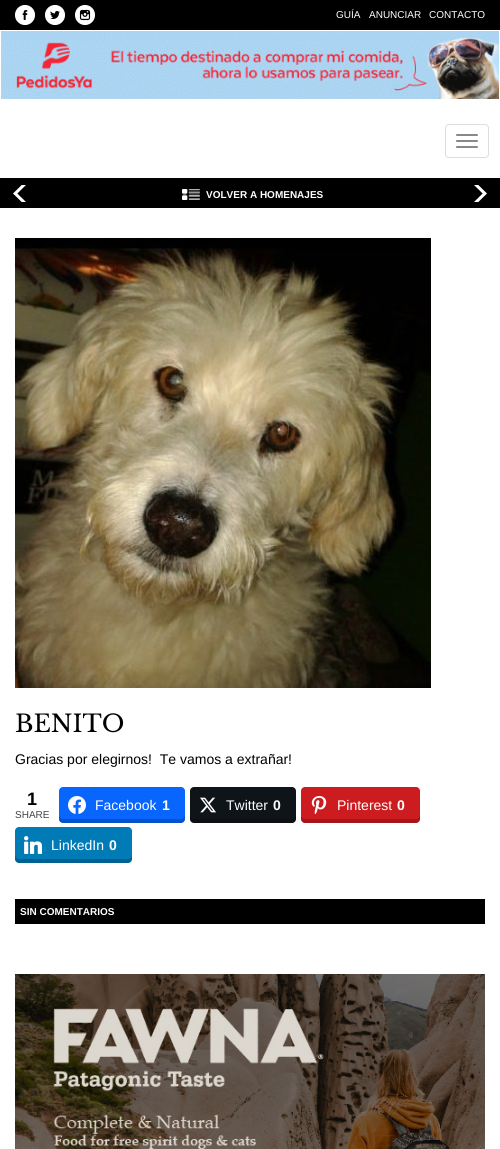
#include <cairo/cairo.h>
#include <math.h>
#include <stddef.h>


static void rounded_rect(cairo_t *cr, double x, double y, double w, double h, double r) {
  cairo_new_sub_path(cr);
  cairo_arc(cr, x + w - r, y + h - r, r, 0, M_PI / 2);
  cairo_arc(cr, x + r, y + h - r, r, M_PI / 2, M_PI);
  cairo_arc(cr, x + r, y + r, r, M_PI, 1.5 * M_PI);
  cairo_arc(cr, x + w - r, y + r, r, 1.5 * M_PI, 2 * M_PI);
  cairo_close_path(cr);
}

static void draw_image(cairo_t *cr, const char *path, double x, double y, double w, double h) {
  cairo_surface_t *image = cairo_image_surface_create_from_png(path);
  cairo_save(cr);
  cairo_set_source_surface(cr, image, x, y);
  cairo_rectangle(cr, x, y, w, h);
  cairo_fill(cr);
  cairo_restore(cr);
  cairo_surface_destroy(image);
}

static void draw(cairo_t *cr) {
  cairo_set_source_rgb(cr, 1, 1, 1);
  cairo_paint(cr);
  cairo_set_source_rgb(cr, 0, 0, 0);
  cairo_rectangle(cr, 0, 0, 500, 30);
  cairo_fill(cr);
  draw_image(cr, "images/1.png", 15, 5, 20, 20);
  draw_image(cr, "images/2.png", 45, 5, 20, 20);
  draw_image(cr, "images/3.png", 75, 5, 20, 20);
  draw_image(cr, "images/4.png", 1, 31, 498, 68);
  rounded_rect(cr, 445.5, 124.5, 43, 33, 3.5);
  cairo_set_source_rgb(cr, 221 / 255.0, 221 / 255.0, 221 / 255.0);
  cairo_set_line_width(cr, 1);
  cairo_stroke(cr);
  cairo_set_source_rgb(cr, 136 / 255.0, 136 / 255.0, 136 / 255.0);
  rounded_rect(cr, 456, 134, 22, 2, 1);
  cairo_fill(cr);
  rounded_rect(cr, 456, 140, 22, 2, 1);
  cairo_fill(cr);
  rounded_rect(cr, 456, 146, 22, 2, 1);
  cairo_fill(cr);
  cairo_set_source_rgb(cr, 0, 0, 0);
  cairo_rectangle(cr, 0, 178, 500, 30);
  cairo_fill(cr);
  draw_image(cr, "images/5.png", 13, 185, 13, 17);
  draw_image(cr, "images/6.png", 182, 189, 18, 11);
  draw_image(cr, "images/7.png", 474, 185, 13, 17);
  draw_image(cr, "images/8.png", 15, 238, 416, 450);
  cairo_set_source_rgb(cr, 8 / 255.0, 102 / 255.0, 1);
  rounded_rect(cr, 59, 787, 126, 36, 4);
  cairo_fill(cr);
  cairo_set_source_rgba(cr, 0, 0, 0, 0.2);
  cairo_new_path(cr);
  cairo_move_to(cr, 59, 815);
  cairo_line_to(cr, 59, 819);
  cairo_curve_to(cr, 59, 821, 61, 823, 63, 823);
  cairo_line_to(cr, 181, 823);
  cairo_curve_to(cr, 183, 823, 185, 821, 185, 819);
  cairo_line_to(cr, 185, 815);
  cairo_curve_to(cr, 185, 817, 183, 819, 181, 819);
  cairo_line_to(cr, 63, 819);
  cairo_curve_to(cr, 61, 819, 59, 817, 59, 815);
  cairo_close_path(cr);
  cairo_fill(cr);
  draw_image(cr, "images/9.png", 68, 796, 18, 18);
  cairo_set_source_rgb(cr, 15 / 255.0, 20 / 255.0, 25 / 255.0);
  rounded_rect(cr, 190, 787, 106, 36, 4);
  cairo_fill(cr);
  cairo_set_source_rgba(cr, 0, 0, 0, 0.2);
  cairo_new_path(cr);
  cairo_move_to(cr, 190, 815);
  cairo_line_to(cr, 190, 819);
  cairo_curve_to(cr, 190, 821, 192, 823, 194, 823);
  cairo_line_to(cr, 292, 823);
  cairo_curve_to(cr, 294, 823, 296, 821, 296, 819);
  cairo_line_to(cr, 296, 815);
  cairo_curve_to(cr, 296, 817, 294, 819, 292, 819);
  cairo_line_to(cr, 194, 819);
  cairo_curve_to(cr, 192, 819, 190, 817, 190, 815);
  cairo_close_path(cr);
  cairo_fill(cr);
  draw_image(cr, "images/10.png", 200, 797, 16, 16);
  cairo_set_source_rgb(cr, 205 / 255.0, 28 / 255.0, 31 / 255.0);
  rounded_rect(cr, 301, 787, 119, 36, 4);
  cairo_fill(cr);
  cairo_set_source_rgba(cr, 0, 0, 0, 0.2);
  cairo_new_path(cr);
  cairo_move_to(cr, 301, 815);
  cairo_line_to(cr, 301, 819);
  cairo_curve_to(cr, 301, 821, 303, 823, 305, 823);
  cairo_line_to(cr, 416, 823);
  cairo_curve_to(cr, 418, 823, 420, 821, 420, 819);
  cairo_line_to(cr, 420, 815);
  cairo_curve_to(cr, 420, 817, 418, 819, 416, 819);
  cairo_line_to(cr, 305, 819);
  cairo_curve_to(cr, 303, 819, 301, 817, 301, 815);
  cairo_close_path(cr);
  cairo_fill(cr);
  draw_image(cr, "images/11.png", 311, 796, 16, 18);
  cairo_set_source_rgb(cr, 0, 123 / 255.0, 182 / 255.0);
  rounded_rect(cr, 15, 827, 117, 36, 4);
  cairo_fill(cr);
  cairo_set_source_rgba(cr, 0, 0, 0, 0.2);
  cairo_new_path(cr);
  cairo_move_to(cr, 15, 855);
  cairo_line_to(cr, 15, 859);
  cairo_curve_to(cr, 15, 861, 17, 863, 19, 863);
  cairo_line_to(cr, 128, 863);
  cairo_curve_to(cr, 130, 863, 132, 861, 132, 859);
  cairo_line_to(cr, 132, 855);
  cairo_curve_to(cr, 132, 857, 130, 859, 128, 859);
  cairo_line_to(cr, 19, 859);
  cairo_curve_to(cr, 17, 859, 15, 857, 15, 855);
  cairo_close_path(cr);
  cairo_fill(cr);
  draw_image(cr, "images/12.png", 24, 836, 18, 18);
  cairo_set_source_rgb(cr, 0, 0, 0);
  cairo_rectangle(cr, 15, 899, 470, 25);
  cairo_fill(cr);
  draw_image(cr, "images/13.png", 15, 974, 470, 175);
  cairo_select_font_face(cr, "Liberation Sans", CAIRO_FONT_SLANT_NORMAL, CAIRO_FONT_WEIGHT_NORMAL);
  cairo_set_font_size(cr, 10);
  cairo_set_source_rgb(cr, 1, 1, 1);
  cairo_move_to(cr, 336, 18);
  cairo_show_text(cr, "GUÍA");
  cairo_move_to(cr, 369, 18);
  cairo_show_text(cr, "ANUNCIAR");
  cairo_move_to(cr, 429, 18);
  cairo_show_text(cr, "CONTACTO");
  cairo_select_font_face(cr, "Liberation Sans", CAIRO_FONT_SLANT_NORMAL, CAIRO_FONT_WEIGHT_BOLD);
  cairo_move_to(cr, 206, 198);
  cairo_show_text(cr, "VOLVER A HOMENAJES");
  cairo_select_font_face(cr, "Libre Baskerville", CAIRO_FONT_SLANT_NORMAL, CAIRO_FONT_WEIGHT_NORMAL);
  cairo_set_font_size(cr, 24);
  cairo_set_source_rgb(cr, 0, 0, 0);
  cairo_move_to(cr, 15, 732);
  cairo_show_text(cr, "BENITO");
  cairo_select_font_face(cr, "Liberation Sans", CAIRO_FONT_SLANT_NORMAL, CAIRO_FONT_WEIGHT_NORMAL);
  cairo_set_font_size(cr, 14);
  cairo_move_to(cr, 15, 764);
  cairo_show_text(cr, "Gracias por elegirnos!  Te vamos a extrañar!");
  cairo_select_font_face(cr, "Liberation Sans", CAIRO_FONT_SLANT_NORMAL, CAIRO_FONT_WEIGHT_BOLD);
  cairo_set_font_size(cr, 18);
  cairo_move_to(cr, 27, 805);
  cairo_show_text(cr, "1");
  cairo_select_font_face(cr, "Liberation Sans", CAIRO_FONT_SLANT_NORMAL, CAIRO_FONT_WEIGHT_NORMAL);
  cairo_set_font_size(cr, 10);
  cairo_set_source_rgb(cr, 68 / 255.0, 68 / 255.0, 68 / 255.0);
  cairo_move_to(cr, 15, 818);
  cairo_show_text(cr, "SHARE");
  cairo_set_font_size(cr, 14);
  cairo_set_source_rgb(cr, 1, 1, 1);
  cairo_move_to(cr, 95, 810);
  cairo_show_text(cr, "Facebook");
  cairo_select_font_face(cr, "Liberation Sans", CAIRO_FONT_SLANT_NORMAL, CAIRO_FONT_WEIGHT_BOLD);
  cairo_move_to(cr, 162, 810);
  cairo_show_text(cr, "1");
  cairo_select_font_face(cr, "Liberation Sans", CAIRO_FONT_SLANT_NORMAL, CAIRO_FONT_WEIGHT_NORMAL);
  cairo_move_to(cr, 226, 810);
  cairo_show_text(cr, "Twitter");
  cairo_select_font_face(cr, "Liberation Sans", CAIRO_FONT_SLANT_NORMAL, CAIRO_FONT_WEIGHT_BOLD);
  cairo_move_to(cr, 273, 810);
  cairo_show_text(cr, "0");
  cairo_select_font_face(cr, "Liberation Sans", CAIRO_FONT_SLANT_NORMAL, CAIRO_FONT_WEIGHT_NORMAL);
  cairo_move_to(cr, 337, 810);
  cairo_show_text(cr, "Pinterest");
  cairo_select_font_face(cr, "Liberation Sans", CAIRO_FONT_SLANT_NORMAL, CAIRO_FONT_WEIGHT_BOLD);
  cairo_move_to(cr, 397, 810);
  cairo_show_text(cr, "0");
  cairo_select_font_face(cr, "Liberation Sans", CAIRO_FONT_SLANT_NORMAL, CAIRO_FONT_WEIGHT_NORMAL);
  cairo_move_to(cr, 51, 850);
  cairo_show_text(cr, "LinkedIn");
  cairo_select_font_face(cr, "Liberation Sans", CAIRO_FONT_SLANT_NORMAL, CAIRO_FONT_WEIGHT_BOLD);
  cairo_move_to(cr, 109, 850);
  cairo_show_text(cr, "0");
  cairo_set_font_size(cr, 10);
  cairo_move_to(cr, 20, 915);
  cairo_show_text(cr, "SIN COMENTARIOS");
}

int main(void) {
  cairo_surface_t *surface = cairo_image_surface_create(CAIRO_FORMAT_RGB24, 500, 1149);
  cairo_t *cr = cairo_create(surface);
  cairo_font_options_t *options = cairo_font_options_create();
  cairo_font_options_set_hint_metrics(options, CAIRO_HINT_METRICS_OFF);
  cairo_font_options_set_hint_style(options, CAIRO_HINT_STYLE_NONE);
  cairo_set_font_options(cr, options);
  cairo_set_miter_limit(cr, 4);
  draw(cr);
  cairo_surface_write_to_png(surface, "out.png");
  cairo_font_options_destroy(options);
  cairo_destroy(cr);
  cairo_surface_destroy(surface);
  return 0;
}
